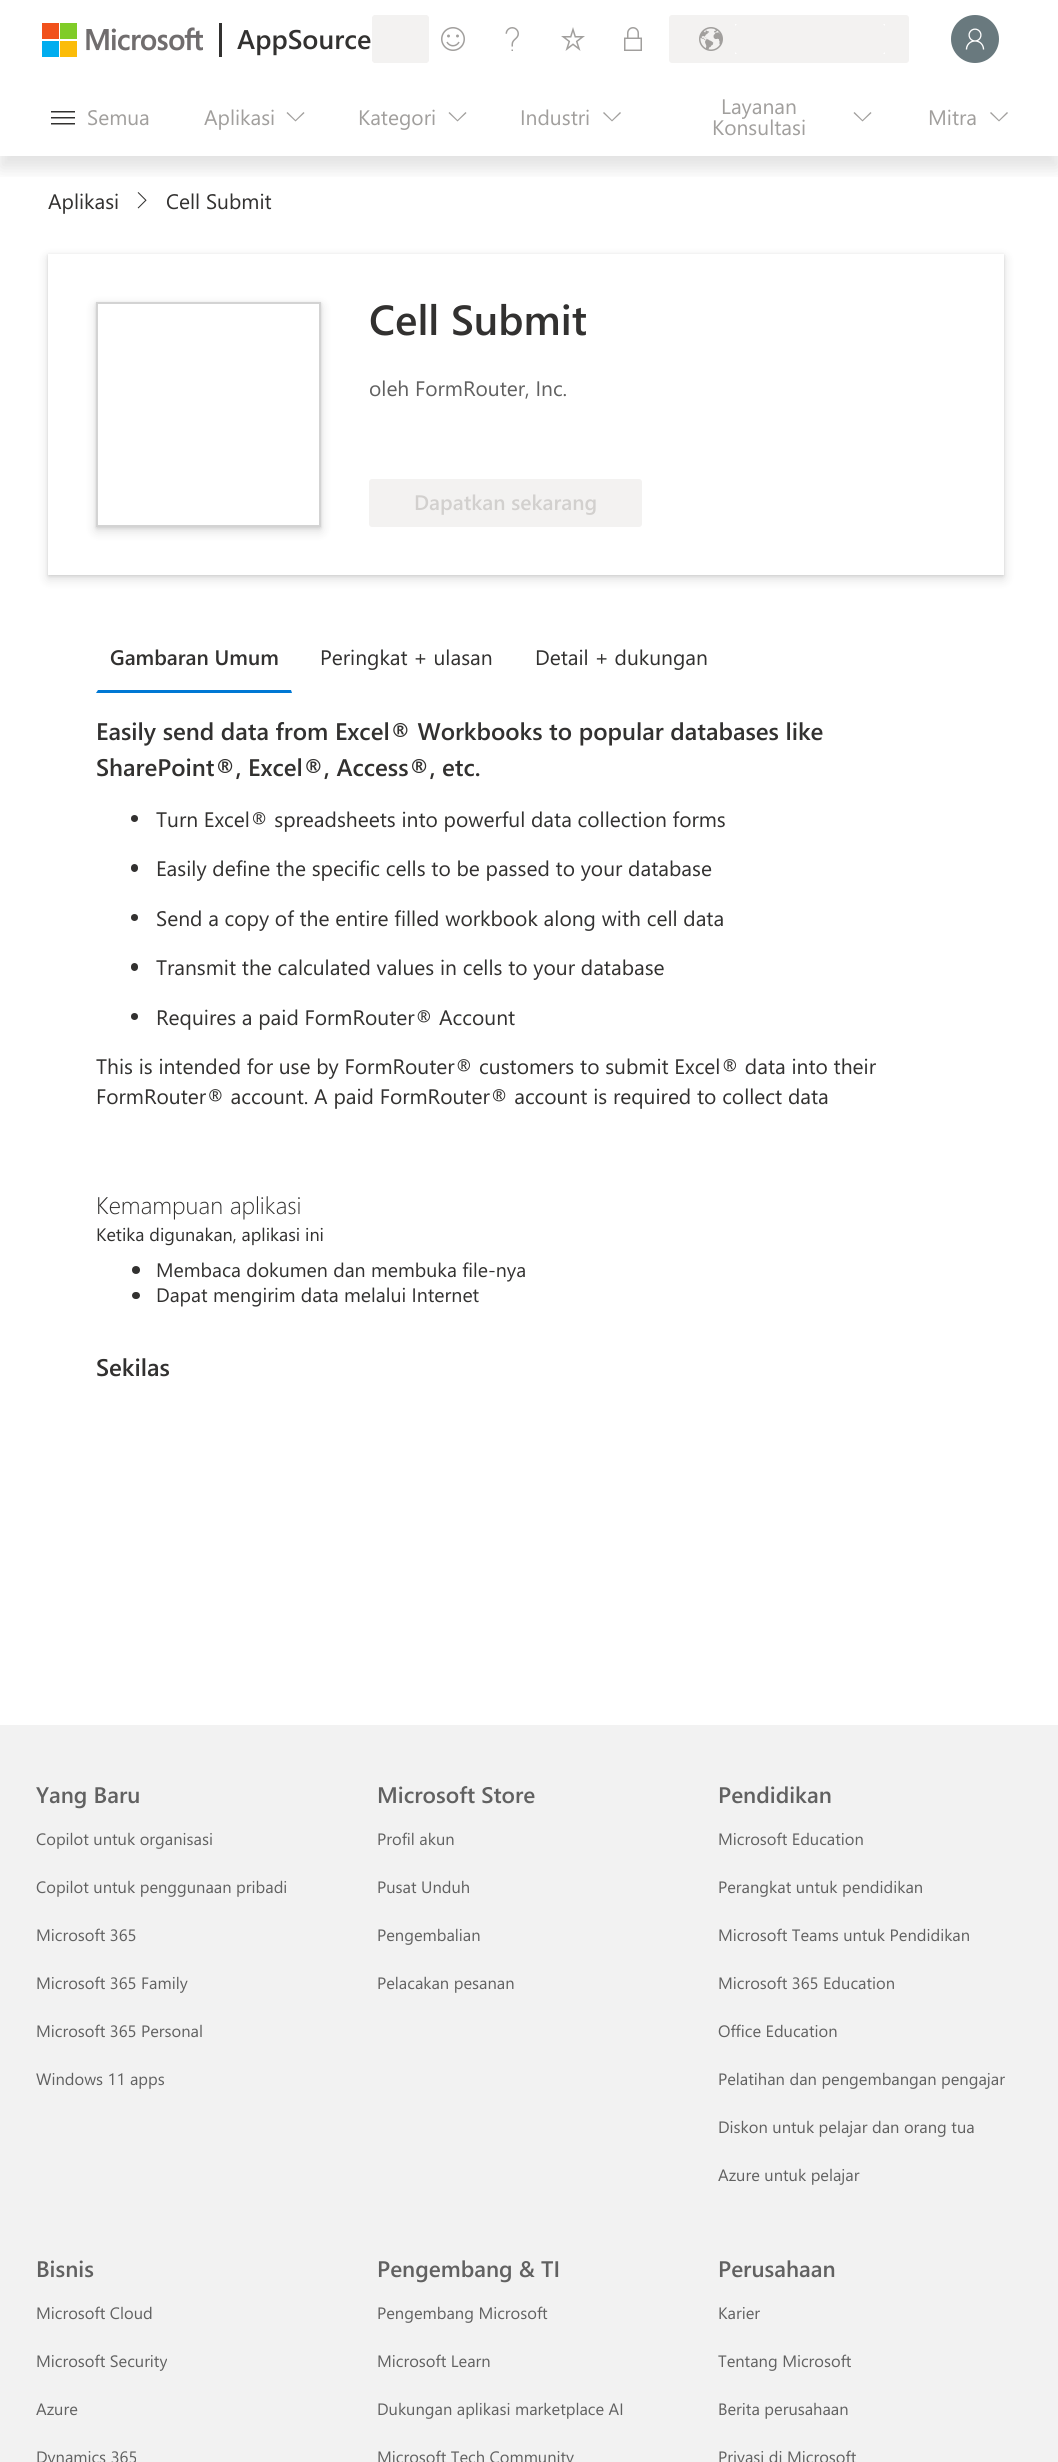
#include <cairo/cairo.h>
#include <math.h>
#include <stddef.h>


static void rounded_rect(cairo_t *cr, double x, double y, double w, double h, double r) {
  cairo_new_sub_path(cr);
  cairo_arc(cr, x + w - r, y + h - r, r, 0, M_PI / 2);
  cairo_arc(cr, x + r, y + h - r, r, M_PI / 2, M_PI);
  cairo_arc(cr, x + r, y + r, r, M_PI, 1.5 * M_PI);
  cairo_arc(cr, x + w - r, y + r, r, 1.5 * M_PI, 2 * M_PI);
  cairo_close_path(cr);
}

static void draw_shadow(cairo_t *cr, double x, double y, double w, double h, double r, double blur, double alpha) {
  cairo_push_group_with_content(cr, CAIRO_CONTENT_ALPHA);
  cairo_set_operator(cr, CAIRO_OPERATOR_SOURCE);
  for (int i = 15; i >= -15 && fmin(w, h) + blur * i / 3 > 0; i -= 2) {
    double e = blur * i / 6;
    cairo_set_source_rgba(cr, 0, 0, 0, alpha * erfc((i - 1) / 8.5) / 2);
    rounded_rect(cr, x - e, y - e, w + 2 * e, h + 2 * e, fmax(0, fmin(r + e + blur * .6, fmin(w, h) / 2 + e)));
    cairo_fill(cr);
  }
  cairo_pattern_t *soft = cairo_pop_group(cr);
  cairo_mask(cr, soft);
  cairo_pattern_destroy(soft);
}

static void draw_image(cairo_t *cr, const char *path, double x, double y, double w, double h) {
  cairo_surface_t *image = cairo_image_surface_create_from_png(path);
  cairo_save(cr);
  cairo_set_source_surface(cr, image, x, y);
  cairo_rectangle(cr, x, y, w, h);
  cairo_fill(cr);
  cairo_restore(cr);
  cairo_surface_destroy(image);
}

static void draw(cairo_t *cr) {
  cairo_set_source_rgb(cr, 1, 1, 1);
  cairo_paint(cr);
  draw_image(cr, "images/13.png", 137, 192, 10, 17);
  cairo_save(cr);
  cairo_rectangle(cr, 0, 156, 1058, 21);
  cairo_clip(cr);
  cairo_set_source_rgb(cr, 0, 0, 0);
  draw_shadow(cr, 0, 12, 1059, 156, 0, 9, 0.12);
  cairo_restore(cr);
  draw_image(cr, "images/1.png", 42, 23, 161, 34);
  cairo_set_source_rgb(cr, 50 / 255.0, 49 / 255.0, 48 / 255.0);
  cairo_rectangle(cr, 219, 23, 3, 34);
  cairo_fill(cr);
  cairo_set_source_rgb(cr, 243 / 255.0, 242 / 255.0, 241 / 255.0);
  cairo_rectangle(cr, 372, 15, 57, 48);
  cairo_fill(cr);
  draw_image(cr, "images/2.png", 372, 15, 2, 2);
  draw_image(cr, "images/3.png", 427, 15, 2, 2);
  draw_image(cr, "images/4.png", 372, 61, 2, 2);
  draw_image(cr, "images/5.png", 427, 61, 2, 2);
  draw_image(cr, "images/6.png", 441, 27, 24, 24);
  draw_image(cr, "images/7.png", 505, 27, 14, 24);
  draw_image(cr, "images/8.png", 561, 27, 24, 24);
  draw_image(cr, "images/9.png", 624, 27, 18, 24);
  rounded_rect(cr, 669, 15, 240, 48, 3);
  cairo_fill(cr);
  draw_image(cr, "images/10.png", 699, 27, 24, 24);
  draw_image(cr, "images/2.png", 735, 24, 2, 2);
  draw_image(cr, "images/3.png", 883, 24, 2, 2);
  draw_image(cr, "images/4.png", 735, 52, 2, 2);
  draw_image(cr, "images/5.png", 883, 52, 2, 2);
  cairo_set_source_rgb(cr, 105 / 255.0, 121 / 255.0, 126 / 255.0);
  cairo_arc(cr, 975, 39, 24, 0, 2 * M_PI);
  cairo_fill(cr);
  draw_image(cr, "images/11.png", 965, 28, 20, 22);
  draw_image(cr, "images/12.png", 51, 111, 24, 14);
  cairo_set_source_rgb(cr, 161 / 255.0, 159 / 255.0, 157 / 255.0);
  cairo_new_path(cr);
  cairo_move_to(cr, 303.5, 112);
  cairo_line_to(cr, 304.5, 113);
  cairo_line_to(cr, 295.5, 121.5);
  cairo_line_to(cr, 286.5, 113);
  cairo_line_to(cr, 287.5, 112);
  cairo_line_to(cr, 295.5, 120);
  cairo_close_path(cr);
  cairo_fill(cr);
  cairo_new_path(cr);
  cairo_move_to(cr, 465.5, 112);
  cairo_line_to(cr, 466.5, 113);
  cairo_line_to(cr, 457.5, 121.5);
  cairo_line_to(cr, 448.5, 113);
  cairo_line_to(cr, 449.5, 112);
  cairo_line_to(cr, 457.5, 120);
  cairo_close_path(cr);
  cairo_fill(cr);
  cairo_new_path(cr);
  cairo_move_to(cr, 620, 112);
  cairo_line_to(cr, 621, 113);
  cairo_line_to(cr, 612, 121.5);
  cairo_line_to(cr, 603, 113);
  cairo_line_to(cr, 604, 112);
  cairo_line_to(cr, 612, 120);
  cairo_close_path(cr);
  cairo_fill(cr);
  cairo_new_path(cr);
  cairo_move_to(cr, 870.5, 112);
  cairo_line_to(cr, 871.5, 113);
  cairo_line_to(cr, 862.5, 121.5);
  cairo_line_to(cr, 853.5, 113);
  cairo_line_to(cr, 854.5, 112);
  cairo_line_to(cr, 862.5, 120);
  cairo_close_path(cr);
  cairo_fill(cr);
  cairo_new_path(cr);
  cairo_move_to(cr, 1007, 112);
  cairo_line_to(cr, 1008, 113);
  cairo_line_to(cr, 999, 121.5);
  cairo_line_to(cr, 990, 113);
  cairo_line_to(cr, 991, 112);
  cairo_line_to(cr, 999, 120);
  cairo_close_path(cr);
  cairo_fill(cr);
  cairo_set_source_rgb(cr, 0, 0, 0);
  draw_shadow(cr, 48, 255, 956, 321, 0, 1.5, 0.11);
  draw_shadow(cr, 48, 258, 956, 321, 0, 5.5, 0.13);
  cairo_set_source_rgb(cr, 1, 1, 1);
  cairo_rectangle(cr, 48, 254, 956, 321);
  cairo_fill(cr);
  cairo_save(cr);
  cairo_set_fill_rule(cr, CAIRO_FILL_RULE_EVEN_ODD);
  cairo_new_path(cr);
  cairo_move_to(cr, 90, 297);
  cairo_line_to(cr, 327, 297);
  cairo_line_to(cr, 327, 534);
  cairo_line_to(cr, 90, 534);
  cairo_close_path(cr);
  cairo_move_to(cr, 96, 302);
  cairo_line_to(cr, 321, 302);
  cairo_line_to(cr, 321, 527);
  cairo_line_to(cr, 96, 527);
  cairo_close_path(cr);
  cairo_clip(cr);
  cairo_set_source_rgb(cr, 0, 0, 0);
  draw_shadow(cr, 96, 303, 225, 225, 0, 1.5, 0.11);
  cairo_restore(cr);
  cairo_save(cr);
  cairo_set_fill_rule(cr, CAIRO_FILL_RULE_EVEN_ODD);
  cairo_new_path(cr);
  cairo_move_to(cr, 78, 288);
  cairo_line_to(cr, 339, 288);
  cairo_line_to(cr, 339, 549);
  cairo_line_to(cr, 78, 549);
  cairo_close_path(cr);
  cairo_move_to(cr, 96, 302);
  cairo_line_to(cr, 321, 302);
  cairo_line_to(cr, 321, 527);
  cairo_line_to(cr, 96, 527);
  cairo_close_path(cr);
  cairo_clip(cr);
  cairo_set_source_rgb(cr, 0, 0, 0);
  draw_shadow(cr, 96, 306, 225, 225, 0, 5.5, 0.13);
  cairo_restore(cr);
  cairo_rectangle(cr, 97, 303, 223, 223);
  cairo_set_source_rgb(cr, 211 / 255.0, 211 / 255.0, 211 / 255.0);
  cairo_stroke(cr);
  cairo_set_source_rgb(cr, 243 / 255.0, 242 / 255.0, 241 / 255.0);
  rounded_rect(cr, 370, 480, 271, 46, 2);
  cairo_fill_preserve(cr);
  cairo_stroke(cr);
  cairo_set_source_rgb(cr, 0, 120 / 255.0, 212 / 255.0);
  cairo_new_path(cr);
  cairo_move_to(cr, 292, 693);
  cairo_line_to(cr, 96, 693);
  cairo_line_to(cr, 98, 690);
  cairo_line_to(cr, 291, 690);
  cairo_close_path(cr);
  cairo_fill(cr);
  cairo_set_source_rgb(cr, 50 / 255.0, 49 / 255.0, 48 / 255.0);
  cairo_arc(cr, 134.5, 818.5, 3.5, 0, 2 * M_PI);
  cairo_fill(cr);
  rounded_rect(cr, 131, 864, 7, 8, 3.5);
  cairo_fill(cr);
  cairo_arc(cr, 134.5, 917.5, 3.5, 0, 2 * M_PI);
  cairo_fill(cr);
  rounded_rect(cr, 131, 963, 7, 8, 3.5);
  cairo_fill(cr);
  cairo_arc(cr, 134.5, 1016.5, 3.5, 0, 2 * M_PI);
  cairo_fill(cr);
  cairo_arc(cr, 136, 1270, 4, 0, 2 * M_PI);
  cairo_fill(cr);
  rounded_rect(cr, 132, 1292, 8, 7, 3.5);
  cairo_fill(cr);
  cairo_set_source_rgb(cr, 242 / 255.0, 242 / 255.0, 242 / 255.0);
  cairo_rectangle(cr, 0, 1725, 1058, 737);
  cairo_fill(cr);
  cairo_select_font_face(cr, "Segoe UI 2 SemiBold", CAIRO_FONT_SLANT_NORMAL, CAIRO_FONT_WEIGHT_NORMAL);
  cairo_set_font_size(cr, 27);
  cairo_set_source_rgb(cr, 50 / 255.0, 49 / 255.0, 48 / 255.0);
  cairo_move_to(cr, 237, 49);
  cairo_show_text(cr, "AppSource");
  cairo_select_font_face(cr, "Segoe UI 2", CAIRO_FONT_SLANT_NORMAL, CAIRO_FONT_WEIGHT_NORMAL);
  cairo_set_font_size(cr, 21);
  cairo_set_source_rgb(cr, 161 / 255.0, 159 / 255.0, 157 / 255.0);
  cairo_move_to(cr, 87, 125);
  cairo_show_text(cr, "Semua");
  cairo_move_to(cr, 204, 125);
  cairo_show_text(cr, "Aplikasi");
  cairo_move_to(cr, 358, 125);
  cairo_show_text(cr, "Kategori");
  cairo_move_to(cr, 520, 125);
  cairo_show_text(cr, "Industri");
  cairo_move_to(cr, 721, 114);
  cairo_show_text(cr, "Layanan");
  cairo_move_to(cr, 712, 135);
  cairo_show_text(cr, "Konsultasi");
  cairo_move_to(cr, 928, 125);
  cairo_show_text(cr, "Mitra");
  cairo_set_source_rgb(cr, 50 / 255.0, 49 / 255.0, 48 / 255.0);
  cairo_move_to(cr, 48, 209);
  cairo_show_text(cr, "Aplikasi");
  cairo_move_to(cr, 166, 209);
  cairo_show_text(cr, "Cell Submit");
  cairo_select_font_face(cr, "Segoe UI 2 SemiBold", CAIRO_FONT_SLANT_NORMAL, CAIRO_FONT_WEIGHT_NORMAL);
  cairo_set_font_size(cr, 42);
  cairo_move_to(cr, 369, 335);
  cairo_show_text(cr, "Cell Submit");
  cairo_select_font_face(cr, "Segoe UI 2", CAIRO_FONT_SLANT_NORMAL, CAIRO_FONT_WEIGHT_NORMAL);
  cairo_set_font_size(cr, 21);
  cairo_set_source_rgb(cr, 97 / 255.0, 97 / 255.0, 97 / 255.0);
  cairo_move_to(cr, 369, 396);
  cairo_show_text(cr, "oleh FormRouter, Inc.");
  cairo_select_font_face(cr, "Segoe UI 2 SemiBold", CAIRO_FONT_SLANT_NORMAL, CAIRO_FONT_WEIGHT_NORMAL);
  cairo_set_source_rgb(cr, 210 / 255.0, 208 / 255.0, 206 / 255.0);
  cairo_move_to(cr, 414, 510);
  cairo_show_text(cr, "Dapatkan sekarang");
  cairo_set_source_rgb(cr, 50 / 255.0, 49 / 255.0, 48 / 255.0);
  cairo_move_to(cr, 110, 665);
  cairo_show_text(cr, "Gambaran Umum");
  cairo_select_font_face(cr, "Segoe UI 2", CAIRO_FONT_SLANT_NORMAL, CAIRO_FONT_WEIGHT_NORMAL);
  cairo_move_to(cr, 320, 665);
  cairo_show_text(cr, "Peringkat + ulasan");
  cairo_move_to(cr, 535, 665);
  cairo_show_text(cr, "Detail + dukungan");
  cairo_select_font_face(cr, "Segoe UI 2 SemiBold", CAIRO_FONT_SLANT_NORMAL, CAIRO_FONT_WEIGHT_NORMAL);
  cairo_set_font_size(cr, 24);
  cairo_move_to(cr, 96, 740);
  cairo_show_text(cr, "Easily send data from Excel® Workbooks to popular databases like");
  cairo_move_to(cr, 96, 776);
  cairo_show_text(cr, "SharePoint®, Excel®, Access®, etc.");
  cairo_select_font_face(cr, "Segoe UI 2", CAIRO_FONT_SLANT_NORMAL, CAIRO_FONT_WEIGHT_NORMAL);
  cairo_set_font_size(cr, 21);
  cairo_move_to(cr, 156, 827);
  cairo_show_text(cr, "Turn Excel® spreadsheets into powerful data collection forms");
  cairo_move_to(cr, 156, 876);
  cairo_show_text(cr, "Easily define the specific cells to be passed to your database");
  cairo_move_to(cr, 156, 926);
  cairo_show_text(cr, "Send a copy of the entire filled workbook along with cell data");
  cairo_move_to(cr, 156, 975);
  cairo_show_text(cr, "Transmit the calculated values in cells to your database");
  cairo_move_to(cr, 156, 1025);
  cairo_show_text(cr, "Requires a paid FormRouter® Account");
  cairo_move_to(cr, 96, 1074);
  cairo_show_text(cr, "This is intended for use by FormRouter® customers to submit Excel® data into their");
  cairo_move_to(cr, 96, 1104);
  cairo_show_text(cr, "FormRouter® account. A paid FormRouter® account is required to collect data");
  cairo_select_font_face(cr, "Segoe UI Light", CAIRO_FONT_SLANT_NORMAL, CAIRO_FONT_WEIGHT_NORMAL);
  cairo_set_font_size(cr, 24);
  cairo_move_to(cr, 96, 1214);
  cairo_show_text(cr, "Kemampuan aplikasi");
  cairo_select_font_face(cr, "Segoe UI 2", CAIRO_FONT_SLANT_NORMAL, CAIRO_FONT_WEIGHT_NORMAL);
  cairo_set_font_size(cr, 18);
  cairo_move_to(cr, 96, 1241);
  cairo_show_text(cr, "Ketika digunakan, aplikasi ini");
  cairo_set_font_size(cr, 19.5);
  cairo_move_to(cr, 156, 1277);
  cairo_show_text(cr, "Membaca dokumen dan membuka file-nya");
  cairo_move_to(cr, 156, 1302);
  cairo_show_text(cr, "Dapat mengirim data melalui Internet");
  cairo_select_font_face(cr, "Segoe UI 2 SemiBold", CAIRO_FONT_SLANT_NORMAL, CAIRO_FONT_WEIGHT_NORMAL);
  cairo_set_font_size(cr, 24);
  cairo_move_to(cr, 96, 1376);
  cairo_show_text(cr, "Sekilas");
  cairo_select_font_face(cr, "Segoe UI SemiBold", CAIRO_FONT_SLANT_NORMAL, CAIRO_FONT_WEIGHT_NORMAL);
  cairo_set_font_size(cr, 22.5);
  cairo_set_source_rgb(cr, 97 / 255.0, 97 / 255.0, 97 / 255.0);
  cairo_move_to(cr, 36, 1803);
  cairo_show_text(cr, "Yang Baru");
  cairo_select_font_face(cr, "Segoe UI", CAIRO_FONT_SLANT_NORMAL, CAIRO_FONT_WEIGHT_NORMAL);
  cairo_set_font_size(cr, 16.5);
  cairo_move_to(cr, 36, 1845);
  cairo_show_text(cr, "Copilot untuk organisasi");
  cairo_move_to(cr, 36, 1893);
  cairo_show_text(cr, "Copilot untuk penggunaan pribadi");
  cairo_move_to(cr, 36, 1941);
  cairo_show_text(cr, "Microsoft 365");
  cairo_move_to(cr, 36, 1989);
  cairo_show_text(cr, "Microsoft 365 Family");
  cairo_move_to(cr, 36, 2037);
  cairo_show_text(cr, "Microsoft 365 Personal");
  cairo_move_to(cr, 36, 2085);
  cairo_show_text(cr, "Windows 11 apps");
  cairo_select_font_face(cr, "Segoe UI SemiBold", CAIRO_FONT_SLANT_NORMAL, CAIRO_FONT_WEIGHT_NORMAL);
  cairo_set_font_size(cr, 22.5);
  cairo_move_to(cr, 377, 1803);
  cairo_show_text(cr, "Microsoft Store");
  cairo_select_font_face(cr, "Segoe UI", CAIRO_FONT_SLANT_NORMAL, CAIRO_FONT_WEIGHT_NORMAL);
  cairo_set_font_size(cr, 16.5);
  cairo_move_to(cr, 377, 1845);
  cairo_show_text(cr, "Profil akun");
  cairo_move_to(cr, 377, 1893);
  cairo_show_text(cr, "Pusat Unduh");
  cairo_move_to(cr, 377, 1941);
  cairo_show_text(cr, "Pengembalian");
  cairo_move_to(cr, 377, 1989);
  cairo_show_text(cr, "Pelacakan pesanan");
  cairo_select_font_face(cr, "Segoe UI SemiBold", CAIRO_FONT_SLANT_NORMAL, CAIRO_FONT_WEIGHT_NORMAL);
  cairo_set_font_size(cr, 22.5);
  cairo_move_to(cr, 718, 1803);
  cairo_show_text(cr, "Pendidikan");
  cairo_select_font_face(cr, "Segoe UI", CAIRO_FONT_SLANT_NORMAL, CAIRO_FONT_WEIGHT_NORMAL);
  cairo_set_font_size(cr, 16.5);
  cairo_move_to(cr, 718, 1845);
  cairo_show_text(cr, "Microsoft Education");
  cairo_move_to(cr, 718, 1893);
  cairo_show_text(cr, "Perangkat untuk pendidikan");
  cairo_move_to(cr, 718, 1941);
  cairo_show_text(cr, "Microsoft Teams untuk Pendidikan");
  cairo_move_to(cr, 718, 1989);
  cairo_show_text(cr, "Microsoft 365 Education");
  cairo_move_to(cr, 718, 2037);
  cairo_show_text(cr, "Office Education");
  cairo_move_to(cr, 718, 2085);
  cairo_show_text(cr, "Pelatihan dan pengembangan pengajar");
  cairo_move_to(cr, 718, 2133);
  cairo_show_text(cr, "Diskon untuk pelajar dan orang tua");
  cairo_move_to(cr, 718, 2181);
  cairo_show_text(cr, "Azure untuk pelajar");
  cairo_select_font_face(cr, "Segoe UI SemiBold", CAIRO_FONT_SLANT_NORMAL, CAIRO_FONT_WEIGHT_NORMAL);
  cairo_set_font_size(cr, 22.5);
  cairo_move_to(cr, 36, 2277);
  cairo_show_text(cr, "Bisnis");
  cairo_select_font_face(cr, "Segoe UI", CAIRO_FONT_SLANT_NORMAL, CAIRO_FONT_WEIGHT_NORMAL);
  cairo_set_font_size(cr, 16.5);
  cairo_move_to(cr, 36, 2319);
  cairo_show_text(cr, "Microsoft Cloud");
  cairo_move_to(cr, 36, 2367);
  cairo_show_text(cr, "Microsoft Security");
  cairo_move_to(cr, 36, 2415);
  cairo_show_text(cr, "Azure");
  cairo_move_to(cr, 36, 2463);
  cairo_show_text(cr, "Dynamics 365");
  cairo_select_font_face(cr, "Segoe UI SemiBold", CAIRO_FONT_SLANT_NORMAL, CAIRO_FONT_WEIGHT_NORMAL);
  cairo_set_font_size(cr, 22.5);
  cairo_move_to(cr, 377, 2277);
  cairo_show_text(cr, "Pengembang & TI");
  cairo_select_font_face(cr, "Segoe UI", CAIRO_FONT_SLANT_NORMAL, CAIRO_FONT_WEIGHT_NORMAL);
  cairo_set_font_size(cr, 16.5);
  cairo_move_to(cr, 377, 2319);
  cairo_show_text(cr, "Pengembang Microsoft");
  cairo_move_to(cr, 377, 2367);
  cairo_show_text(cr, "Microsoft Learn");
  cairo_move_to(cr, 377, 2415);
  cairo_show_text(cr, "Dukungan aplikasi marketplace AI");
  cairo_move_to(cr, 377, 2463);
  cairo_show_text(cr, "Microsoft Tech Community");
  cairo_select_font_face(cr, "Segoe UI SemiBold", CAIRO_FONT_SLANT_NORMAL, CAIRO_FONT_WEIGHT_NORMAL);
  cairo_set_font_size(cr, 22.5);
  cairo_move_to(cr, 718, 2277);
  cairo_show_text(cr, "Perusahaan");
  cairo_select_font_face(cr, "Segoe UI", CAIRO_FONT_SLANT_NORMAL, CAIRO_FONT_WEIGHT_NORMAL);
  cairo_set_font_size(cr, 16.5);
  cairo_move_to(cr, 718, 2319);
  cairo_show_text(cr, "Karier");
  cairo_move_to(cr, 718, 2367);
  cairo_show_text(cr, "Tentang Microsoft");
  cairo_move_to(cr, 718, 2415);
  cairo_show_text(cr, "Berita perusahaan");
  cairo_move_to(cr, 718, 2463);
  cairo_show_text(cr, "Privasi di Microsoft");
}

int main(void) {
  cairo_surface_t *surface = cairo_image_surface_create(CAIRO_FORMAT_RGB24, 1058, 2462);
  cairo_t *cr = cairo_create(surface);
  cairo_font_options_t *options = cairo_font_options_create();
  cairo_font_options_set_hint_metrics(options, CAIRO_HINT_METRICS_OFF);
  cairo_font_options_set_hint_style(options, CAIRO_HINT_STYLE_NONE);
  cairo_set_font_options(cr, options);
  cairo_set_miter_limit(cr, 4);
  draw(cr);
  cairo_surface_write_to_png(surface, "out.png");
  cairo_font_options_destroy(options);
  cairo_destroy(cr);
  cairo_surface_destroy(surface);
  return 0;
}
